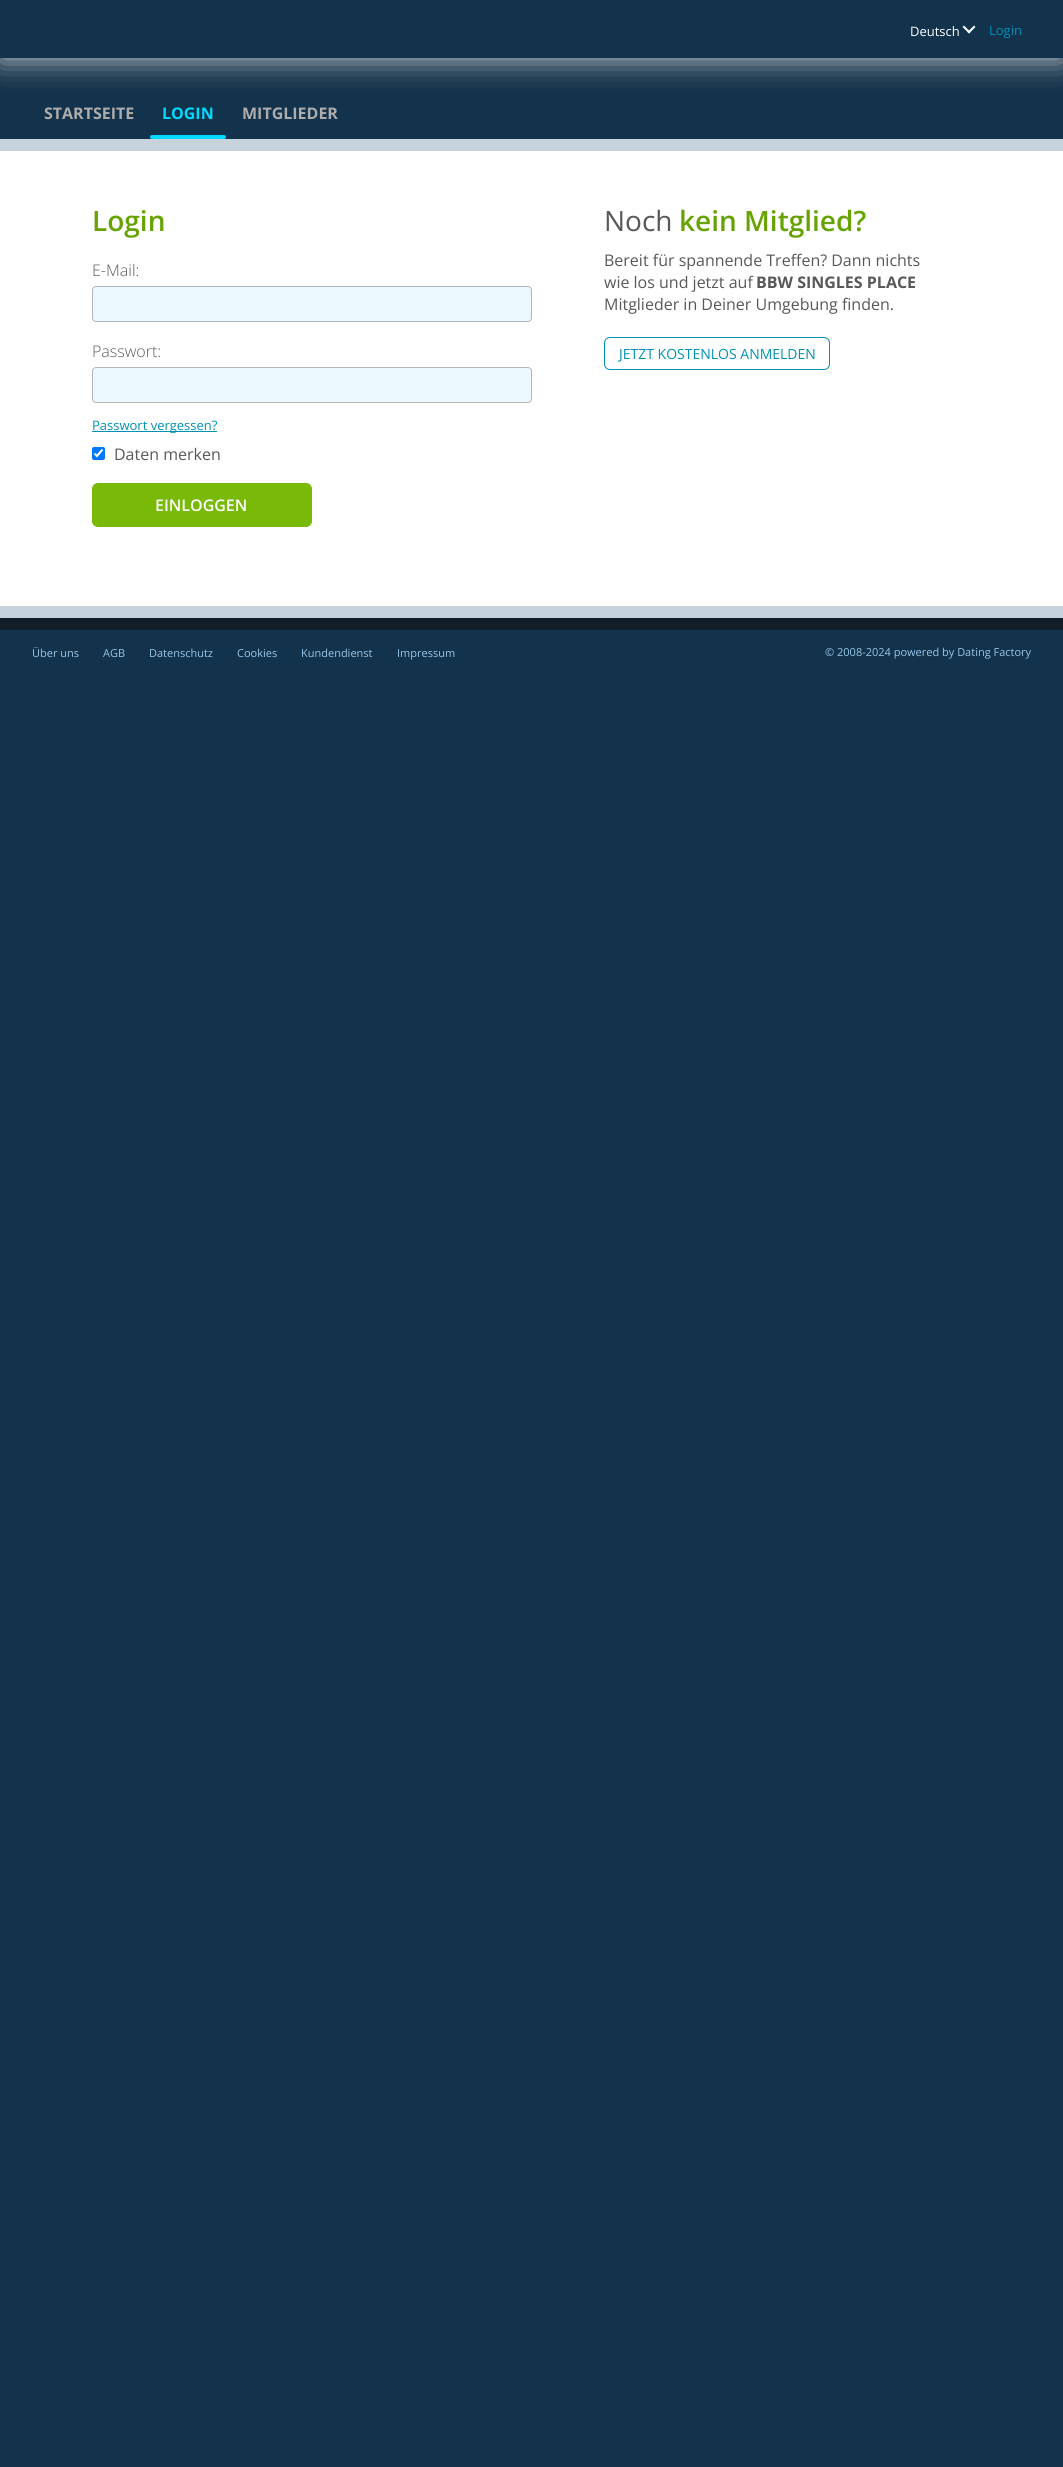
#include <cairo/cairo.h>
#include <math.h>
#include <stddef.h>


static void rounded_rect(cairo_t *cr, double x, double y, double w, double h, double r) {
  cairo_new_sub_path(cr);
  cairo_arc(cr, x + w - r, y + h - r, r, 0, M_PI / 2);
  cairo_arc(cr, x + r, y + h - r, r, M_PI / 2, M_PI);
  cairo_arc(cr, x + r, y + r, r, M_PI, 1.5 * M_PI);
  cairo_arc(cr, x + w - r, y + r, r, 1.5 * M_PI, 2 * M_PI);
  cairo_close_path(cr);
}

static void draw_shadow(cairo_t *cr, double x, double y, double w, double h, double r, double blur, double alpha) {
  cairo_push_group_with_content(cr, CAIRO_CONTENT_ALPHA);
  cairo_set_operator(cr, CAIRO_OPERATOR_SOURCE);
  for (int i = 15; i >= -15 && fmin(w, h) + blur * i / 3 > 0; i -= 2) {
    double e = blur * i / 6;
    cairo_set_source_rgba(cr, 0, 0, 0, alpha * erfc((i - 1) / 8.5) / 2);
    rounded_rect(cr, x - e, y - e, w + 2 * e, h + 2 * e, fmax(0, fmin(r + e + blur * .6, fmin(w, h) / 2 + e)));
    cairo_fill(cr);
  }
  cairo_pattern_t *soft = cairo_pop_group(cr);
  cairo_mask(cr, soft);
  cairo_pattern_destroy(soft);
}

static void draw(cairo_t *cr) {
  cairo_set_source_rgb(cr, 19 / 255.0, 50 / 255.0, 75 / 255.0);
  cairo_paint(cr);
  cairo_save(cr);
  cairo_rectangle(cr, 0, 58, 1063, 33);
  cairo_clip(cr);
  cairo_set_source_rgb(cr, 215 / 255.0, 215 / 255.0, 215 / 255.0);
  draw_shadow(cr, 0, 0, 1063, 58, 0, 16, 1);
  cairo_restore(cr);
  cairo_set_source_rgb(cr, 1, 1, 1);
  cairo_new_path(cr);
  cairo_move_to(cr, 974, 25.5);
  cairo_line_to(cr, 975.5, 27);
  cairo_line_to(cr, 969, 33.5);
  cairo_line_to(cr, 967.5, 32);
  cairo_close_path(cr);
  cairo_fill(cr);
  cairo_new_path(cr);
  cairo_move_to(cr, 964, 25.5);
  cairo_line_to(cr, 970.5, 32);
  cairo_line_to(cr, 969, 33.5);
  cairo_line_to(cr, 962.5, 27);
  cairo_close_path(cr);
  cairo_fill(cr);
  cairo_set_source_rgb(cr, 0, 218 / 255.0, 1);
  rounded_rect(cr, 150, 135, 76, 4, 2);
  cairo_fill(cr);
  cairo_set_source_rgb(cr, 1, 1, 1);
  cairo_rectangle(cr, 0, 151, 1063, 455);
  cairo_fill(cr);
  cairo_set_source_rgb(cr, 198 / 255.0, 211 / 255.0, 221 / 255.0);
  cairo_rectangle(cr, 0, 139, 1063, 12);
  cairo_fill(cr);
  cairo_rectangle(cr, 0, 606, 1063, 12);
  cairo_fill(cr);
  cairo_set_source_rgb(cr, 236 / 255.0, 248 / 255.0, 1);
  rounded_rect(cr, 92.5, 286.5, 439, 35, 3.5);
  cairo_fill_preserve(cr);
  cairo_set_source_rgb(cr, 182 / 255.0, 182 / 255.0, 182 / 255.0);
  cairo_set_line_width(cr, 1);
  cairo_stroke(cr);
  cairo_set_source_rgb(cr, 236 / 255.0, 248 / 255.0, 1);
  rounded_rect(cr, 92.5, 367.5, 439, 35, 3.5);
  cairo_fill_preserve(cr);
  cairo_set_source_rgb(cr, 182 / 255.0, 182 / 255.0, 182 / 255.0);
  cairo_stroke(cr);
  cairo_set_source_rgb(cr, 0, 145 / 255.0, 181 / 255.0);
  cairo_rectangle(cr, 92, 431, 125, 1);
  cairo_fill(cr);
  cairo_set_source_rgb(cr, 0, 117 / 255.0, 1);
  rounded_rect(cr, 92, 447, 13, 13, 2);
  cairo_fill(cr);
  cairo_new_path(cr);
  cairo_move_to(cr, 94.5, 453.5);
  cairo_line_to(cr, 97, 456);
  cairo_line_to(cr, 102.5, 449.5);
  cairo_set_source_rgb(cr, 1, 1, 1);
  cairo_set_line_width(cr, 2.1);
  cairo_stroke(cr);
  cairo_set_source_rgb(cr, 121 / 255.0, 186 / 255.0, 9 / 255.0);
  rounded_rect(cr, 92.5, 483.5, 219, 43, 5.5);
  cairo_fill_preserve(cr);
  cairo_set_line_width(cr, 1);
  cairo_stroke(cr);
  rounded_rect(cr, 604.5, 337.5, 225, 32, 5.5);
  cairo_set_source_rgb(cr, 0, 145 / 255.0, 181 / 255.0);
  cairo_stroke(cr);
  cairo_set_source_rgb(cr, 17 / 255.0, 30 / 255.0, 40 / 255.0);
  cairo_rectangle(cr, 0, 618, 1063, 12);
  cairo_fill(cr);
  cairo_select_font_face(cr, "Open Sans", CAIRO_FONT_SLANT_NORMAL, CAIRO_FONT_WEIGHT_NORMAL);
  cairo_set_font_size(cr, 13);
  cairo_set_source_rgb(cr, 1, 1, 1);
  cairo_move_to(cr, 910, 36);
  cairo_show_text(cr, "Deutsch");
  cairo_set_source_rgb(cr, 0, 145 / 255.0, 181 / 255.0);
  cairo_move_to(cr, 989, 35);
  cairo_show_text(cr, "Login");
  cairo_select_font_face(cr, "Open Sans", CAIRO_FONT_SLANT_NORMAL, CAIRO_FONT_WEIGHT_BOLD);
  cairo_set_font_size(cr, 16);
  cairo_set_source_rgb(cr, 172 / 255.0, 172 / 255.0, 172 / 255.0);
  cairo_move_to(cr, 44, 119);
  cairo_show_text(cr, "STARTSEITE");
  cairo_set_source_rgb(cr, 0, 218 / 255.0, 1);
  cairo_move_to(cr, 162, 119);
  cairo_show_text(cr, "LOGIN");
  cairo_set_source_rgb(cr, 172 / 255.0, 172 / 255.0, 172 / 255.0);
  cairo_move_to(cr, 242, 119);
  cairo_show_text(cr, "MITGLIEDER");
  cairo_select_font_face(cr, "Open Sans SemiBold", CAIRO_FONT_SLANT_NORMAL, CAIRO_FONT_WEIGHT_NORMAL);
  cairo_set_font_size(cr, 28);
  cairo_set_source_rgb(cr, 103 / 255.0, 163 / 255.0, 0);
  cairo_move_to(cr, 92, 231);
  cairo_show_text(cr, "Login");
  cairo_select_font_face(cr, "Open Sans Light", CAIRO_FONT_SLANT_NORMAL, CAIRO_FONT_WEIGHT_NORMAL);
  cairo_set_font_size(cr, 16);
  cairo_set_source_rgb(cr, 88 / 255.0, 88 / 255.0, 88 / 255.0);
  cairo_move_to(cr, 92, 276);
  cairo_show_text(cr, "E-Mail:");
  cairo_move_to(cr, 92, 357);
  cairo_show_text(cr, "Passwort:");
  cairo_select_font_face(cr, "Open Sans", CAIRO_FONT_SLANT_NORMAL, CAIRO_FONT_WEIGHT_NORMAL);
  cairo_set_font_size(cr, 13);
  cairo_set_source_rgb(cr, 0, 145 / 255.0, 181 / 255.0);
  cairo_move_to(cr, 92, 430);
  cairo_show_text(cr, "Passwort vergessen?");
  cairo_set_font_size(cr, 16);
  cairo_set_source_rgb(cr, 88 / 255.0, 88 / 255.0, 88 / 255.0);
  cairo_move_to(cr, 114, 460);
  cairo_show_text(cr, "Daten merken");
  cairo_select_font_face(cr, "Open Sans SemiBold", CAIRO_FONT_SLANT_NORMAL, CAIRO_FONT_WEIGHT_NORMAL);
  cairo_set_source_rgb(cr, 1, 1, 1);
  cairo_move_to(cr, 155, 511);
  cairo_show_text(cr, "EINLOGGEN");
  cairo_select_font_face(cr, "Open Sans", CAIRO_FONT_SLANT_NORMAL, CAIRO_FONT_WEIGHT_NORMAL);
  cairo_set_font_size(cr, 28);
  cairo_set_source_rgb(cr, 88 / 255.0, 88 / 255.0, 88 / 255.0);
  cairo_move_to(cr, 604, 231);
  cairo_show_text(cr, "Noch");
  cairo_select_font_face(cr, "Open Sans SemiBold", CAIRO_FONT_SLANT_NORMAL, CAIRO_FONT_WEIGHT_NORMAL);
  cairo_set_source_rgb(cr, 103 / 255.0, 163 / 255.0, 0);
  cairo_move_to(cr, 679, 231);
  cairo_show_text(cr, "kein Mitglied?");
  cairo_select_font_face(cr, "Open Sans", CAIRO_FONT_SLANT_NORMAL, CAIRO_FONT_WEIGHT_NORMAL);
  cairo_set_font_size(cr, 16);
  cairo_set_source_rgb(cr, 88 / 255.0, 88 / 255.0, 88 / 255.0);
  cairo_move_to(cr, 604, 266);
  cairo_show_text(cr, "Bereit für spannende Treffen? Dann nichts");
  cairo_move_to(cr, 604, 288);
  cairo_show_text(cr, "wie los und jetzt auf");
  cairo_select_font_face(cr, "Open Sans", CAIRO_FONT_SLANT_NORMAL, CAIRO_FONT_WEIGHT_BOLD);
  cairo_move_to(cr, 756, 288);
  cairo_show_text(cr, "BBW SINGLES PLACE");
  cairo_select_font_face(cr, "Open Sans", CAIRO_FONT_SLANT_NORMAL, CAIRO_FONT_WEIGHT_NORMAL);
  cairo_move_to(cr, 604, 310);
  cairo_show_text(cr, "Mitglieder in Deiner Umgebung finden.");
  cairo_set_font_size(cr, 14);
  cairo_set_source_rgb(cr, 0, 145 / 255.0, 181 / 255.0);
  cairo_move_to(cr, 619, 359);
  cairo_show_text(cr, "JETZT KOSTENLOS ANMELDEN");
  cairo_set_font_size(cr, 11);
  cairo_set_source_rgb(cr, 153 / 255.0, 198 / 255.0, 233 / 255.0);
  cairo_move_to(cr, 32, 657);
  cairo_show_text(cr, "Über uns");
  cairo_move_to(cr, 103, 657);
  cairo_show_text(cr, "AGB");
  cairo_move_to(cr, 149, 657);
  cairo_show_text(cr, "Datenschutz");
  cairo_move_to(cr, 237, 657);
  cairo_show_text(cr, "Cookies");
  cairo_move_to(cr, 301, 657);
  cairo_show_text(cr, "Kundendienst");
  cairo_move_to(cr, 397, 657);
  cairo_show_text(cr, "Impressum");
  cairo_move_to(cr, 825, 656);
  cairo_show_text(cr, "© 2008-2024 powered by Dating Factory");
}

int main(void) {
  cairo_surface_t *surface = cairo_image_surface_create(CAIRO_FORMAT_RGB24, 1063, 2467);
  cairo_t *cr = cairo_create(surface);
  cairo_font_options_t *options = cairo_font_options_create();
  cairo_font_options_set_hint_metrics(options, CAIRO_HINT_METRICS_OFF);
  cairo_font_options_set_hint_style(options, CAIRO_HINT_STYLE_NONE);
  cairo_set_font_options(cr, options);
  cairo_set_miter_limit(cr, 4);
  draw(cr);
  cairo_surface_write_to_png(surface, "out.png");
  cairo_font_options_destroy(options);
  cairo_destroy(cr);
  cairo_surface_destroy(surface);
  return 0;
}
